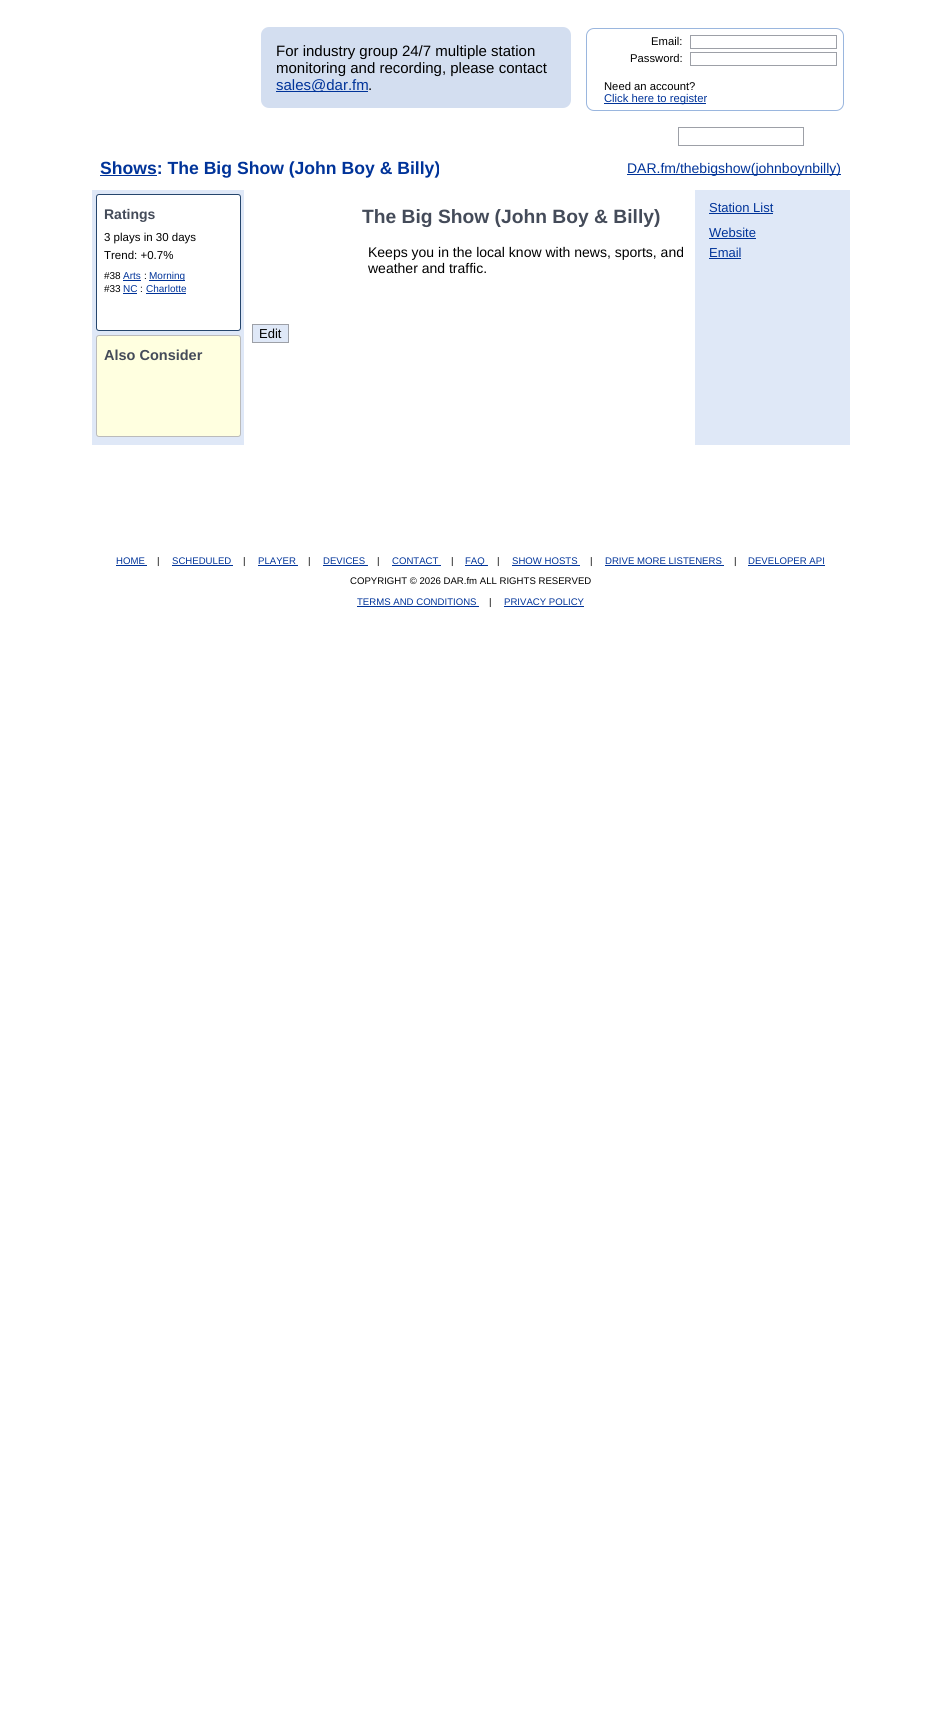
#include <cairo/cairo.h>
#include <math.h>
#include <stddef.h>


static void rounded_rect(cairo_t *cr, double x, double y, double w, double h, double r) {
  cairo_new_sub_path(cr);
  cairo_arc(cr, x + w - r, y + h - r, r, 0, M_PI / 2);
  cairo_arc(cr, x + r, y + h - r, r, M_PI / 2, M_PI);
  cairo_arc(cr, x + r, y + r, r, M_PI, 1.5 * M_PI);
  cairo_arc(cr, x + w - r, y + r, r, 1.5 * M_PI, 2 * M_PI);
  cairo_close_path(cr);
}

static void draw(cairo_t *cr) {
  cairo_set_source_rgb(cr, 1, 1, 1);
  cairo_paint(cr);
  cairo_set_source_rgb(cr, 211 / 255.0, 222 / 255.0, 240 / 255.0);
  rounded_rect(cr, 261, 27, 310, 81, 8);
  cairo_fill(cr);
  cairo_set_source_rgb(cr, 0, 51 / 255.0, 153 / 255.0);
  cairo_rectangle(cr, 276, 91, 92, 1);
  cairo_fill(cr);
  rounded_rect(cr, 586.5, 28.5, 257, 82, 7.5);
  cairo_set_source_rgb(cr, 154 / 255.0, 182 / 255.0, 222 / 255.0);
  cairo_set_line_width(cr, 1);
  cairo_stroke(cr);
  cairo_rectangle(cr, 690.5, 35.5, 146, 13);
  cairo_set_source_rgb(cr, 157 / 255.0, 160 / 255.0, 167 / 255.0);
  cairo_stroke(cr);
  cairo_rectangle(cr, 690.5, 52.5, 146, 13);
  cairo_stroke(cr);
  cairo_set_source_rgb(cr, 0, 51 / 255.0, 153 / 255.0);
  cairo_rectangle(cr, 604, 103, 102, 1);
  cairo_fill(cr);
  cairo_rectangle(cr, 678.5, 127.5, 125, 18);
  cairo_set_source_rgb(cr, 157 / 255.0, 160 / 255.0, 167 / 255.0);
  cairo_stroke(cr);
  cairo_set_source_rgb(cr, 223 / 255.0, 232 / 255.0, 247 / 255.0);
  cairo_rectangle(cr, 92, 190, 758, 255);
  cairo_fill(cr);
  cairo_set_source_rgb(cr, 0, 51 / 255.0, 153 / 255.0);
  cairo_rectangle(cr, 100, 175, 57, 1);
  cairo_fill(cr);
  cairo_rectangle(cr, 627, 174, 214, 1);
  cairo_fill(cr);
  cairo_set_source_rgb(cr, 1, 1, 1);
  rounded_rect(cr, 96.5, 194.5, 144, 136, 2.5);
  cairo_fill_preserve(cr);
  cairo_set_source_rgb(cr, 38 / 255.0, 70 / 255.0, 109 / 255.0);
  cairo_stroke(cr);
  cairo_set_source_rgb(cr, 0, 51 / 255.0, 153 / 255.0);
  cairo_rectangle(cr, 123, 280, 18, 1);
  cairo_fill(cr);
  cairo_rectangle(cr, 149, 280, 36, 1);
  cairo_fill(cr);
  cairo_rectangle(cr, 123, 293, 14, 1);
  cairo_fill(cr);
  cairo_rectangle(cr, 146, 293, 40, 1);
  cairo_fill(cr);
  cairo_set_source_rgb(cr, 1, 1, 224 / 255.0);
  rounded_rect(cr, 96.5, 335.5, 144, 101, 2.5);
  cairo_fill_preserve(cr);
  cairo_set_source_rgb(cr, 187 / 255.0, 187 / 255.0, 187 / 255.0);
  cairo_stroke(cr);
  cairo_set_source_rgb(cr, 1, 1, 1);
  cairo_rectangle(cr, 244, 190, 451, 255);
  cairo_fill(cr);
  cairo_set_source_rgb(cr, 223 / 255.0, 232 / 255.0, 247 / 255.0);
  cairo_rectangle(cr, 252.5, 324.5, 36, 18);
  cairo_fill_preserve(cr);
  cairo_set_source_rgb(cr, 157 / 255.0, 160 / 255.0, 167 / 255.0);
  cairo_stroke(cr);
  cairo_set_source_rgb(cr, 0, 51 / 255.0, 153 / 255.0);
  cairo_rectangle(cr, 709, 213, 64, 1);
  cairo_fill(cr);
  cairo_rectangle(cr, 709, 238, 47, 1);
  cairo_fill(cr);
  cairo_rectangle(cr, 709, 258, 32, 1);
  cairo_fill(cr);
  cairo_rectangle(cr, 116, 565, 31, 1);
  cairo_fill(cr);
  cairo_rectangle(cr, 172, 565, 61, 1);
  cairo_fill(cr);
  cairo_rectangle(cr, 258, 565, 40, 1);
  cairo_fill(cr);
  cairo_rectangle(cr, 323, 565, 45, 1);
  cairo_fill(cr);
  cairo_rectangle(cr, 392, 565, 49, 1);
  cairo_fill(cr);
  cairo_rectangle(cr, 465, 565, 23, 1);
  cairo_fill(cr);
  cairo_rectangle(cr, 512, 565, 68, 1);
  cairo_fill(cr);
  cairo_rectangle(cr, 605, 565, 119, 1);
  cairo_fill(cr);
  cairo_rectangle(cr, 748, 565, 77, 1);
  cairo_fill(cr);
  cairo_rectangle(cr, 357, 606, 122, 1);
  cairo_fill(cr);
  cairo_rectangle(cr, 504, 606, 80, 1);
  cairo_fill(cr);
  cairo_select_font_face(cr, "Liberation Sans", CAIRO_FONT_SLANT_NORMAL, CAIRO_FONT_WEIGHT_NORMAL);
  cairo_set_font_size(cr, 15);
  cairo_set_source_rgb(cr, 0, 0, 0);
  cairo_move_to(cr, 276, 56);
  cairo_show_text(cr, "For industry group 24/7 multiple station");
  cairo_move_to(cr, 276, 73);
  cairo_show_text(cr, "monitoring and recording, please contact");
  cairo_set_source_rgb(cr, 0, 51 / 255.0, 153 / 255.0);
  cairo_move_to(cr, 276, 90);
  cairo_show_text(cr, "sales@dar.fm");
  cairo_set_source_rgb(cr, 0, 0, 0);
  cairo_move_to(cr, 368, 90);
  cairo_show_text(cr, ".");
  cairo_set_font_size(cr, 11.25);
  cairo_move_to(cr, 651, 45);
  cairo_show_text(cr, "Email:");
  cairo_move_to(cr, 630, 62);
  cairo_show_text(cr, "Password:");
  cairo_move_to(cr, 604, 90);
  cairo_show_text(cr, "Need an account?");
  cairo_set_source_rgb(cr, 0, 51 / 255.0, 153 / 255.0);
  cairo_move_to(cr, 604, 102);
  cairo_show_text(cr, "Click here to register");
  cairo_select_font_face(cr, "Liberation Sans", CAIRO_FONT_SLANT_NORMAL, CAIRO_FONT_WEIGHT_BOLD);
  cairo_set_font_size(cr, 17.6);
  cairo_move_to(cr, 100, 174);
  cairo_show_text(cr, "Shows: The Big Show (John Boy & Billy)");
  cairo_select_font_face(cr, "Liberation Sans", CAIRO_FONT_SLANT_NORMAL, CAIRO_FONT_WEIGHT_NORMAL);
  cairo_set_font_size(cr, 14);
  cairo_move_to(cr, 627, 173);
  cairo_show_text(cr, "DAR.fm/thebigshow(johnboynbilly)");
  cairo_select_font_face(cr, "Liberation Sans", CAIRO_FONT_SLANT_NORMAL, CAIRO_FONT_WEIGHT_BOLD);
  cairo_set_source_rgb(cr, 68 / 255.0, 75 / 255.0, 89 / 255.0);
  cairo_move_to(cr, 104, 219);
  cairo_show_text(cr, "Ratings");
  cairo_select_font_face(cr, "Liberation Sans", CAIRO_FONT_SLANT_NORMAL, CAIRO_FONT_WEIGHT_NORMAL);
  cairo_set_font_size(cr, 11.5);
  cairo_set_source_rgb(cr, 0, 0, 0);
  cairo_move_to(cr, 104, 241);
  cairo_show_text(cr, "3 plays in 30 days");
  cairo_move_to(cr, 104, 259);
  cairo_show_text(cr, "Trend: +0.7%");
  cairo_set_font_size(cr, 10);
  cairo_move_to(cr, 104, 279);
  cairo_show_text(cr, "#38");
  cairo_set_source_rgb(cr, 0, 51 / 255.0, 153 / 255.0);
  cairo_move_to(cr, 123, 279);
  cairo_show_text(cr, "Arts");
  cairo_set_source_rgb(cr, 0, 0, 0);
  cairo_move_to(cr, 144, 279);
  cairo_show_text(cr, ":");
  cairo_set_source_rgb(cr, 0, 51 / 255.0, 153 / 255.0);
  cairo_move_to(cr, 149, 279);
  cairo_show_text(cr, "Morning");
  cairo_set_source_rgb(cr, 0, 0, 0);
  cairo_move_to(cr, 104, 292);
  cairo_show_text(cr, "#33");
  cairo_set_source_rgb(cr, 0, 51 / 255.0, 153 / 255.0);
  cairo_move_to(cr, 123, 292);
  cairo_show_text(cr, "NC");
  cairo_set_source_rgb(cr, 0, 0, 0);
  cairo_move_to(cr, 140, 292);
  cairo_show_text(cr, ":");
  cairo_set_source_rgb(cr, 0, 51 / 255.0, 153 / 255.0);
  cairo_move_to(cr, 146, 292);
  cairo_show_text(cr, "Charlotte");
  cairo_select_font_face(cr, "Liberation Sans", CAIRO_FONT_SLANT_NORMAL, CAIRO_FONT_WEIGHT_BOLD);
  cairo_set_font_size(cr, 14.5);
  cairo_set_source_rgb(cr, 68 / 255.0, 75 / 255.0, 89 / 255.0);
  cairo_move_to(cr, 104, 360);
  cairo_show_text(cr, "Also Consider");
  cairo_set_font_size(cr, 19.25);
  cairo_move_to(cr, 362, 223);
  cairo_show_text(cr, "The Big Show (John Boy & Billy)");
  cairo_select_font_face(cr, "Liberation Sans", CAIRO_FONT_SLANT_NORMAL, CAIRO_FONT_WEIGHT_NORMAL);
  cairo_set_font_size(cr, 14);
  cairo_set_source_rgb(cr, 0, 0, 0);
  cairo_move_to(cr, 368, 257);
  cairo_show_text(cr, "Keeps you in the local know with news, sports, and");
  cairo_move_to(cr, 368, 273);
  cairo_show_text(cr, "weather and traffic.");
  cairo_set_font_size(cr, 13);
  cairo_move_to(cr, 259, 338);
  cairo_show_text(cr, "Edit");
  cairo_set_source_rgb(cr, 0, 51 / 255.0, 153 / 255.0);
  cairo_move_to(cr, 709, 212);
  cairo_show_text(cr, "Station List");
  cairo_move_to(cr, 709, 237);
  cairo_show_text(cr, "Website");
  cairo_move_to(cr, 709, 257);
  cairo_show_text(cr, "Email");
  cairo_set_font_size(cr, 9.6);
  cairo_move_to(cr, 116, 564);
  cairo_show_text(cr, "HOME");
  cairo_set_source_rgb(cr, 0, 0, 0);
  cairo_move_to(cr, 157, 564);
  cairo_show_text(cr, "|");
  cairo_set_source_rgb(cr, 0, 51 / 255.0, 153 / 255.0);
  cairo_move_to(cr, 172, 564);
  cairo_show_text(cr, "SCHEDULED");
  cairo_set_source_rgb(cr, 0, 0, 0);
  cairo_move_to(cr, 243, 564);
  cairo_show_text(cr, "|");
  cairo_set_source_rgb(cr, 0, 51 / 255.0, 153 / 255.0);
  cairo_move_to(cr, 258, 564);
  cairo_show_text(cr, "PLAYER");
  cairo_set_source_rgb(cr, 0, 0, 0);
  cairo_move_to(cr, 308, 564);
  cairo_show_text(cr, "|");
  cairo_set_source_rgb(cr, 0, 51 / 255.0, 153 / 255.0);
  cairo_move_to(cr, 323, 564);
  cairo_show_text(cr, "DEVICES");
  cairo_set_source_rgb(cr, 0, 0, 0);
  cairo_move_to(cr, 377, 564);
  cairo_show_text(cr, "|");
  cairo_set_source_rgb(cr, 0, 51 / 255.0, 153 / 255.0);
  cairo_move_to(cr, 392, 564);
  cairo_show_text(cr, "CONTACT");
  cairo_set_source_rgb(cr, 0, 0, 0);
  cairo_move_to(cr, 451, 564);
  cairo_show_text(cr, "|");
  cairo_set_source_rgb(cr, 0, 51 / 255.0, 153 / 255.0);
  cairo_move_to(cr, 465, 564);
  cairo_show_text(cr, "FAQ");
  cairo_set_source_rgb(cr, 0, 0, 0);
  cairo_move_to(cr, 497, 564);
  cairo_show_text(cr, "|");
  cairo_set_source_rgb(cr, 0, 51 / 255.0, 153 / 255.0);
  cairo_move_to(cr, 512, 564);
  cairo_show_text(cr, "SHOW HOSTS");
  cairo_set_source_rgb(cr, 0, 0, 0);
  cairo_move_to(cr, 590, 564);
  cairo_show_text(cr, "|");
  cairo_set_source_rgb(cr, 0, 51 / 255.0, 153 / 255.0);
  cairo_move_to(cr, 605, 564);
  cairo_show_text(cr, "DRIVE MORE LISTENERS");
  cairo_set_source_rgb(cr, 0, 0, 0);
  cairo_move_to(cr, 734, 564);
  cairo_show_text(cr, "|");
  cairo_set_source_rgb(cr, 0, 51 / 255.0, 153 / 255.0);
  cairo_move_to(cr, 748, 564);
  cairo_show_text(cr, "DEVELOPER API");
  cairo_set_source_rgb(cr, 0, 0, 0);
  cairo_move_to(cr, 350, 584);
  cairo_show_text(cr, "COPYRIGHT © 2026 DAR.fm ALL RIGHTS RESERVED");
  cairo_set_source_rgb(cr, 0, 51 / 255.0, 153 / 255.0);
  cairo_move_to(cr, 357, 605);
  cairo_show_text(cr, "TERMS AND CONDITIONS");
  cairo_set_source_rgb(cr, 0, 0, 0);
  cairo_move_to(cr, 489, 605);
  cairo_show_text(cr, "|");
  cairo_set_source_rgb(cr, 0, 51 / 255.0, 153 / 255.0);
  cairo_move_to(cr, 504, 605);
  cairo_show_text(cr, "PRIVACY POLICY");
}

int main(void) {
  cairo_surface_t *surface = cairo_image_surface_create(CAIRO_FORMAT_RGB24, 941, 1731);
  cairo_t *cr = cairo_create(surface);
  cairo_font_options_t *options = cairo_font_options_create();
  cairo_font_options_set_hint_metrics(options, CAIRO_HINT_METRICS_OFF);
  cairo_font_options_set_hint_style(options, CAIRO_HINT_STYLE_NONE);
  cairo_set_font_options(cr, options);
  cairo_set_miter_limit(cr, 4);
  draw(cr);
  cairo_surface_write_to_png(surface, "out.png");
  cairo_font_options_destroy(options);
  cairo_destroy(cr);
  cairo_surface_destroy(surface);
  return 0;
}
